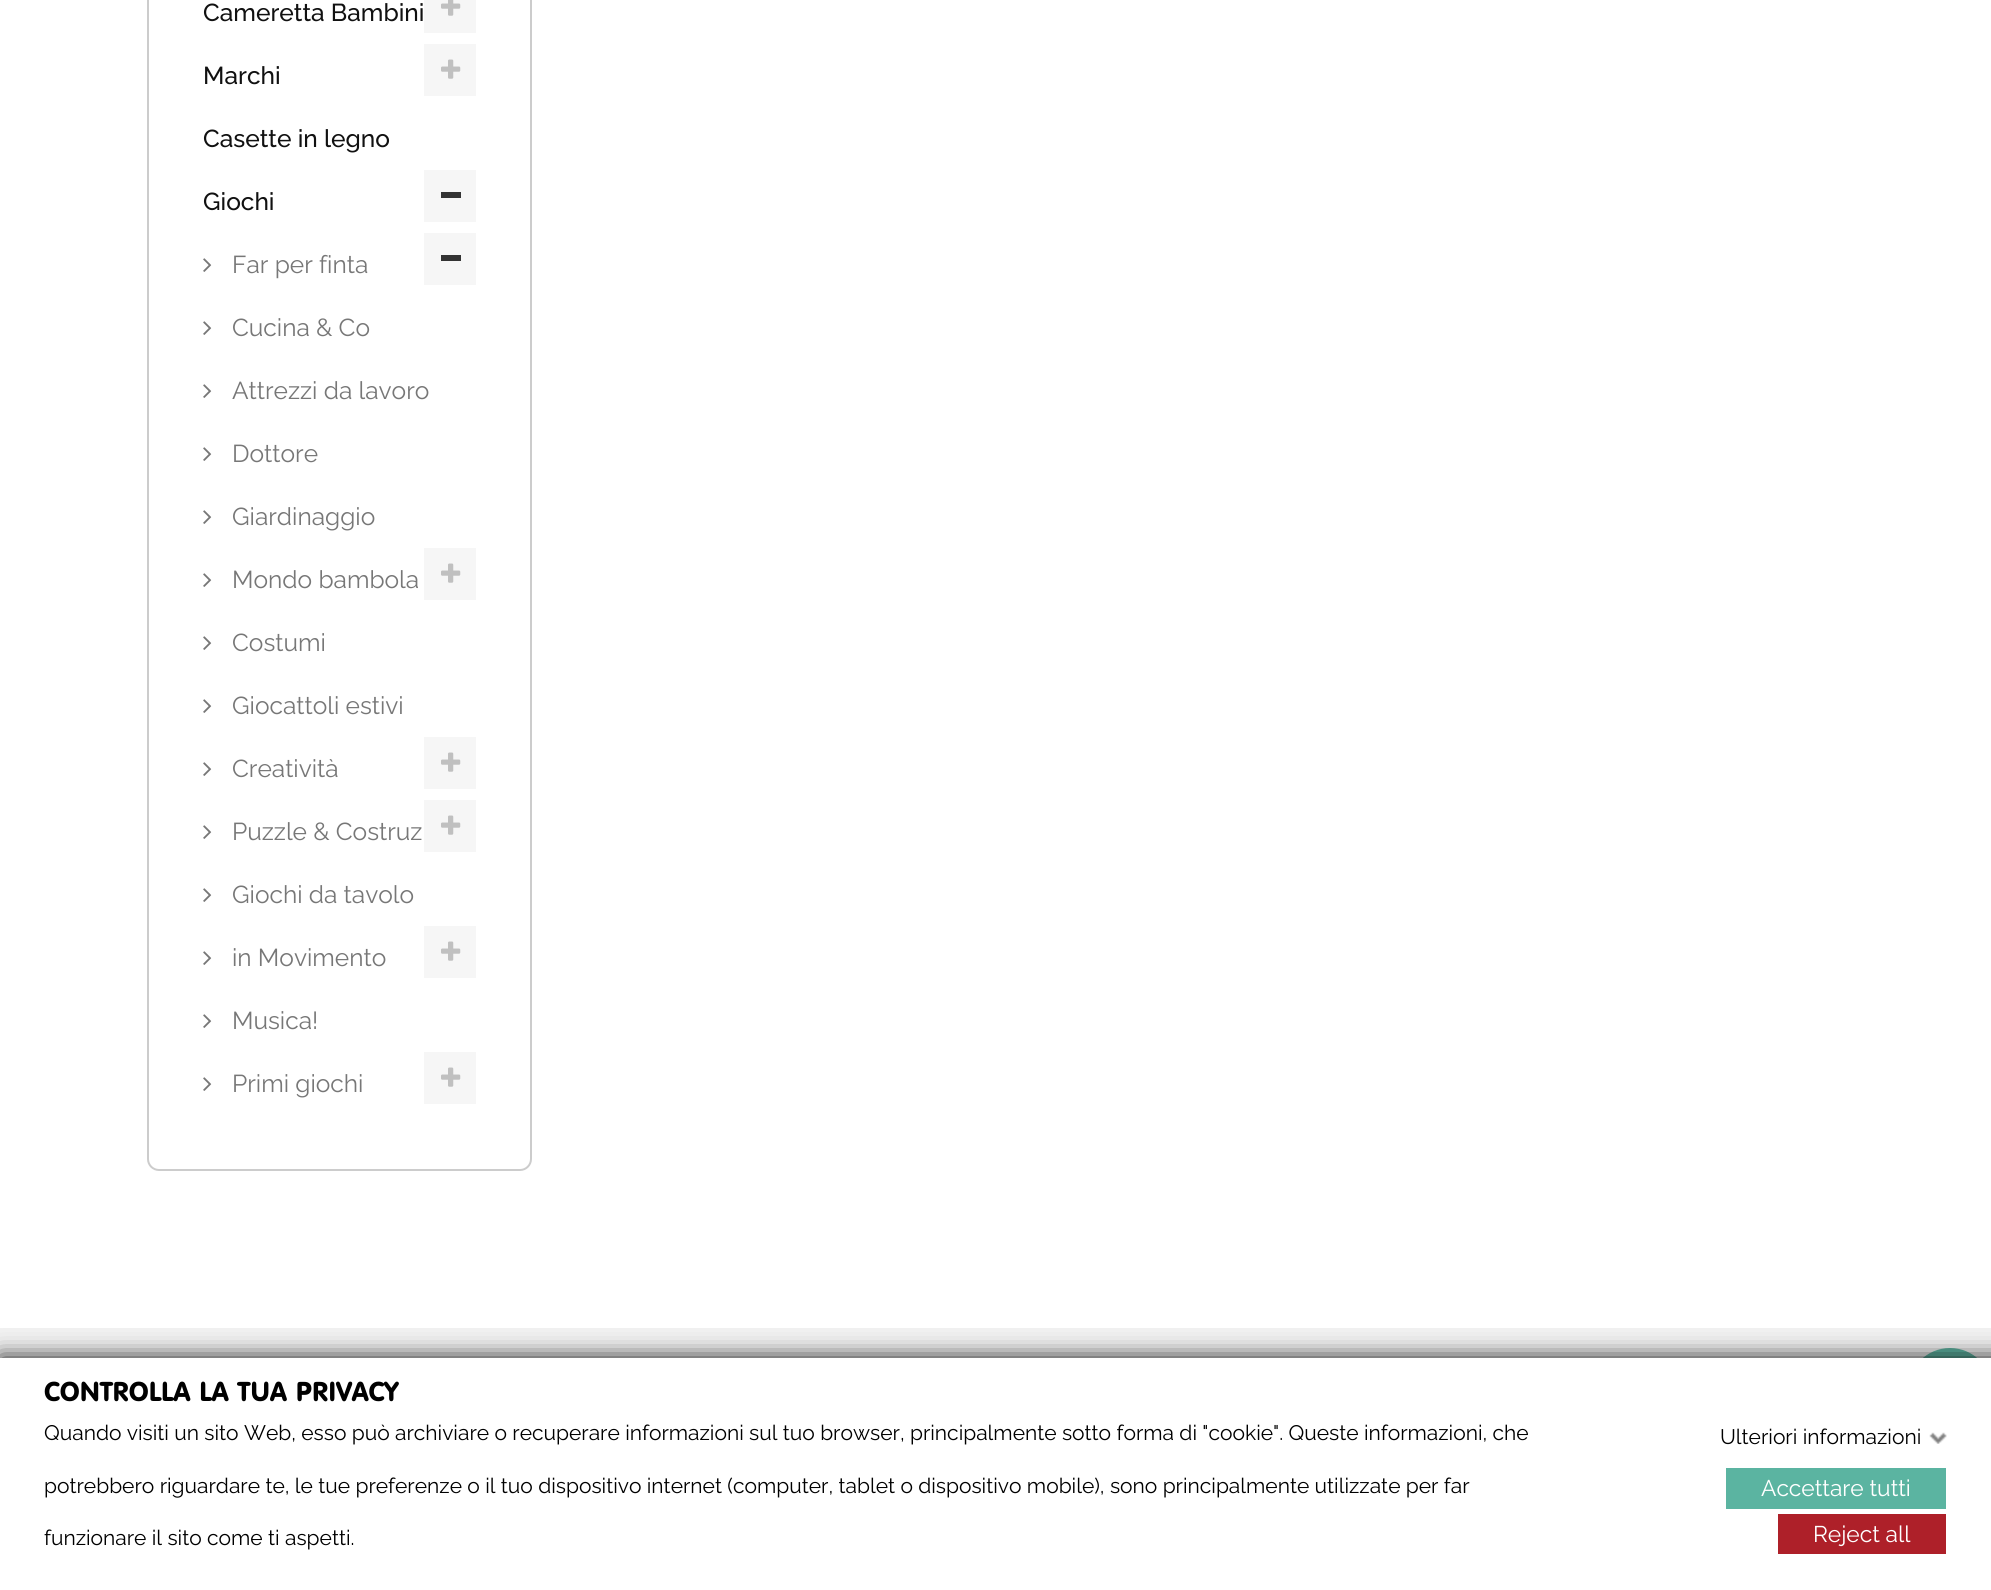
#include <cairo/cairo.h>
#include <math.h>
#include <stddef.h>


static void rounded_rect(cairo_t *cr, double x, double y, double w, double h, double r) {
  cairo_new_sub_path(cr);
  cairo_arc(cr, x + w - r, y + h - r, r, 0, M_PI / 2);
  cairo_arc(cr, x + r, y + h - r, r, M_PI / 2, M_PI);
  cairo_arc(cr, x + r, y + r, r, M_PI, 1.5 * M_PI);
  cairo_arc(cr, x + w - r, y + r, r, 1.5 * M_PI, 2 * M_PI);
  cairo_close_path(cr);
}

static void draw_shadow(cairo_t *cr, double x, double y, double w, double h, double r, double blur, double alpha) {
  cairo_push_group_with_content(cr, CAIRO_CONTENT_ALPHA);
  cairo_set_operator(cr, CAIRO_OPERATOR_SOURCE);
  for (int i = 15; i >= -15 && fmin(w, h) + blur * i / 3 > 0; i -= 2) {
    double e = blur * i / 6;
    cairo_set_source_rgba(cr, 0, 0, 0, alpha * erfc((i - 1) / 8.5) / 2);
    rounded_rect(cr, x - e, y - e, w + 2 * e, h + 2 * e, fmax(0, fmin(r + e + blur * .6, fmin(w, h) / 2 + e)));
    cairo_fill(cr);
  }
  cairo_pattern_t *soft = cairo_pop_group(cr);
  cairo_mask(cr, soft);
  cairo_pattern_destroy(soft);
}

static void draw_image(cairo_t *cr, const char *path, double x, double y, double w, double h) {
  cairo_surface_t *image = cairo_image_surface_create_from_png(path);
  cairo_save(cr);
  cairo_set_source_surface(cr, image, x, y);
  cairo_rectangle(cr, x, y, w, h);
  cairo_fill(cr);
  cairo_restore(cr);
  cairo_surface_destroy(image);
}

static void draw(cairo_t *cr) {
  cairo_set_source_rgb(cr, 1, 1, 1);
  cairo_paint(cr);
  rounded_rect(cr, 148, -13, 383, 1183, 11);
  cairo_set_source_rgb(cr, 204 / 255.0, 204 / 255.0, 204 / 255.0);
  cairo_stroke(cr);
  cairo_set_source_rgb(cr, 246 / 255.0, 246 / 255.0, 246 / 255.0);
  cairo_rectangle(cr, 424, 0, 52, 33);
  cairo_fill(cr);
  draw_image(cr, "images/1.png", 441, 0, 20, 16);
  cairo_rectangle(cr, 424, 44, 52, 52);
  cairo_fill(cr);
  draw_image(cr, "images/2.png", 441, 59, 20, 20);
  cairo_rectangle(cr, 424, 170, 52, 52);
  cairo_fill(cr);
  cairo_set_source_rgb(cr, 51 / 255.0, 51 / 255.0, 51 / 255.0);
  cairo_rectangle(cr, 441, 192, 20, 6);
  cairo_fill(cr);
  draw_image(cr, "images/3.png", 203, 258, 9, 14);
  cairo_set_source_rgb(cr, 246 / 255.0, 246 / 255.0, 246 / 255.0);
  cairo_rectangle(cr, 424, 233, 52, 52);
  cairo_fill(cr);
  cairo_set_source_rgb(cr, 51 / 255.0, 51 / 255.0, 51 / 255.0);
  cairo_rectangle(cr, 441, 255, 20, 6);
  cairo_fill(cr);
  draw_image(cr, "images/3.png", 203, 321, 9, 14);
  draw_image(cr, "images/3.png", 203, 384, 9, 14);
  draw_image(cr, "images/3.png", 203, 447, 9, 14);
  draw_image(cr, "images/3.png", 203, 510, 9, 14);
  draw_image(cr, "images/3.png", 203, 573, 9, 14);
  cairo_set_source_rgb(cr, 246 / 255.0, 246 / 255.0, 246 / 255.0);
  cairo_rectangle(cr, 424, 548, 52, 52);
  cairo_fill(cr);
  draw_image(cr, "images/2.png", 441, 563, 20, 20);
  draw_image(cr, "images/3.png", 203, 636, 9, 14);
  draw_image(cr, "images/3.png", 203, 699, 9, 14);
  draw_image(cr, "images/3.png", 203, 762, 9, 14);
  cairo_rectangle(cr, 424, 737, 52, 52);
  cairo_fill(cr);
  draw_image(cr, "images/2.png", 441, 752, 20, 20);
  draw_image(cr, "images/3.png", 203, 825, 9, 14);
  cairo_rectangle(cr, 424, 800, 52, 52);
  cairo_fill(cr);
  draw_image(cr, "images/2.png", 441, 815, 20, 20);
  draw_image(cr, "images/3.png", 203, 888, 9, 14);
  draw_image(cr, "images/3.png", 203, 951, 9, 14);
  cairo_rectangle(cr, 424, 926, 52, 52);
  cairo_fill(cr);
  draw_image(cr, "images/2.png", 441, 941, 20, 20);
  draw_image(cr, "images/3.png", 203, 1014, 9, 14);
  draw_image(cr, "images/3.png", 203, 1077, 9, 14);
  cairo_rectangle(cr, 424, 1052, 52, 52);
  cairo_fill(cr);
  draw_image(cr, "images/2.png", 441, 1067, 20, 20);
  cairo_set_source_rgb(cr, 242 / 255.0, 242 / 255.0, 242 / 255.0);
  cairo_rectangle(cr, 0, 1328, 1991, 30);
  cairo_fill(cr);
  cairo_set_source_rgb(cr, 91 / 255.0, 180 / 255.0, 161 / 255.0);
  cairo_arc(cr, 1950, 1390, 42, 0, 2 * M_PI);
  cairo_fill(cr);
  cairo_set_source_rgb(cr, 18 / 255.0, 18 / 255.0, 18 / 255.0);
  draw_shadow(cr, 0, 1358, 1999, 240, 0, 12, 1);
  cairo_set_source_rgb(cr, 1, 1, 1);
  cairo_rectangle(cr, 0, 1358, 1991, 232);
  cairo_fill(cr);
  draw_image(cr, "images/4.png", 1929, 1432, 18, 12);
  cairo_set_source_rgb(cr, 91 / 255.0, 180 / 255.0, 161 / 255.0);
  cairo_rectangle(cr, 1726, 1468, 220, 41);
  cairo_fill(cr);
  cairo_set_source_rgb(cr, 174 / 255.0, 32 / 255.0, 41 / 255.0);
  cairo_rectangle(cr, 1778, 1514, 168, 40);
  cairo_fill(cr);
  cairo_select_font_face(cr, "Raleway Medium", CAIRO_FONT_SLANT_NORMAL, CAIRO_FONT_WEIGHT_NORMAL);
  cairo_set_font_size(cr, 24.5);
  cairo_set_source_rgb(cr, 17 / 255.0, 17 / 255.0, 17 / 255.0);
  cairo_move_to(cr, 203, 21);
  cairo_show_text(cr, "Cameretta Bambini");
  cairo_move_to(cr, 203, 84);
  cairo_show_text(cr, "Marchi");
  cairo_move_to(cr, 203, 147);
  cairo_show_text(cr, "Casette in legno");
  cairo_move_to(cr, 203, 210);
  cairo_show_text(cr, "Giochi");
  cairo_select_font_face(cr, "Raleway", CAIRO_FONT_SLANT_NORMAL, CAIRO_FONT_WEIGHT_NORMAL);
  cairo_set_source_rgb(cr, 119 / 255.0, 119 / 255.0, 119 / 255.0);
  cairo_move_to(cr, 232, 273);
  cairo_show_text(cr, "Far per finta");
  cairo_move_to(cr, 232, 336);
  cairo_show_text(cr, "Cucina & Co");
  cairo_move_to(cr, 232, 399);
  cairo_show_text(cr, "Attrezzi da lavoro");
  cairo_move_to(cr, 232, 462);
  cairo_show_text(cr, "Dottore");
  cairo_move_to(cr, 232, 525);
  cairo_show_text(cr, "Giardinaggio");
  cairo_move_to(cr, 232, 588);
  cairo_show_text(cr, "Mondo bambola");
  cairo_move_to(cr, 232, 651);
  cairo_show_text(cr, "Costumi");
  cairo_move_to(cr, 232, 714);
  cairo_show_text(cr, "Giocattoli estivi");
  cairo_move_to(cr, 232, 777);
  cairo_show_text(cr, "Creatività");
  cairo_move_to(cr, 232, 840);
  cairo_show_text(cr, "Puzzle & Costruz");
  cairo_move_to(cr, 232, 903);
  cairo_show_text(cr, "Giochi da tavolo");
  cairo_move_to(cr, 232, 966);
  cairo_show_text(cr, "in Movimento");
  cairo_move_to(cr, 232, 1029);
  cairo_show_text(cr, "Musica!");
  cairo_move_to(cr, 232, 1092);
  cairo_show_text(cr, "Primi giochi");
  cairo_select_font_face(cr, "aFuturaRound", CAIRO_FONT_SLANT_NORMAL, CAIRO_FONT_WEIGHT_BOLD);
  cairo_set_font_size(cr, 26.25);
  cairo_set_source_rgb(cr, 0, 0, 0);
  cairo_move_to(cr, 44, 1401);
  cairo_show_text(cr, "CONTROLLA LA TUA PRIVACY");
  cairo_select_font_face(cr, "Raleway", CAIRO_FONT_SLANT_NORMAL, CAIRO_FONT_WEIGHT_NORMAL);
  cairo_set_font_size(cr, 21);
  cairo_move_to(cr, 44, 1440);
  cairo_show_text(cr, "Quando visiti un sito Web, esso può archiviare o recuperare informazioni sul tuo browser, principalmente sotto forma di \"cookie\". Queste informazioni, che");
  cairo_move_to(cr, 44, 1493);
  cairo_show_text(cr, "potrebbero riguardare te, le tue preferenze o il tuo dispositivo internet (computer, tablet o dispositivo mobile), sono principalmente utilizzate per far");
  cairo_move_to(cr, 44, 1545);
  cairo_show_text(cr, "funzionare il sito come ti aspetti.");
  cairo_move_to(cr, 1720, 1444);
  cairo_show_text(cr, "Ulteriori informazioni");
  cairo_set_font_size(cr, 22.75);
  cairo_set_source_rgb(cr, 1, 1, 1);
  cairo_move_to(cr, 1761, 1496);
  cairo_show_text(cr, "Accettare tutti");
  cairo_move_to(cr, 1813, 1542);
  cairo_show_text(cr, "Reject all");
}

int main(void) {
  cairo_surface_t *surface = cairo_image_surface_create(CAIRO_FORMAT_RGB24, 1991, 1590);
  cairo_t *cr = cairo_create(surface);
  cairo_font_options_t *options = cairo_font_options_create();
  cairo_font_options_set_hint_metrics(options, CAIRO_HINT_METRICS_OFF);
  cairo_font_options_set_hint_style(options, CAIRO_HINT_STYLE_NONE);
  cairo_set_font_options(cr, options);
  cairo_set_miter_limit(cr, 4);
  draw(cr);
  cairo_surface_write_to_png(surface, "out.png");
  cairo_font_options_destroy(options);
  cairo_destroy(cr);
  cairo_surface_destroy(surface);
  return 0;
}
